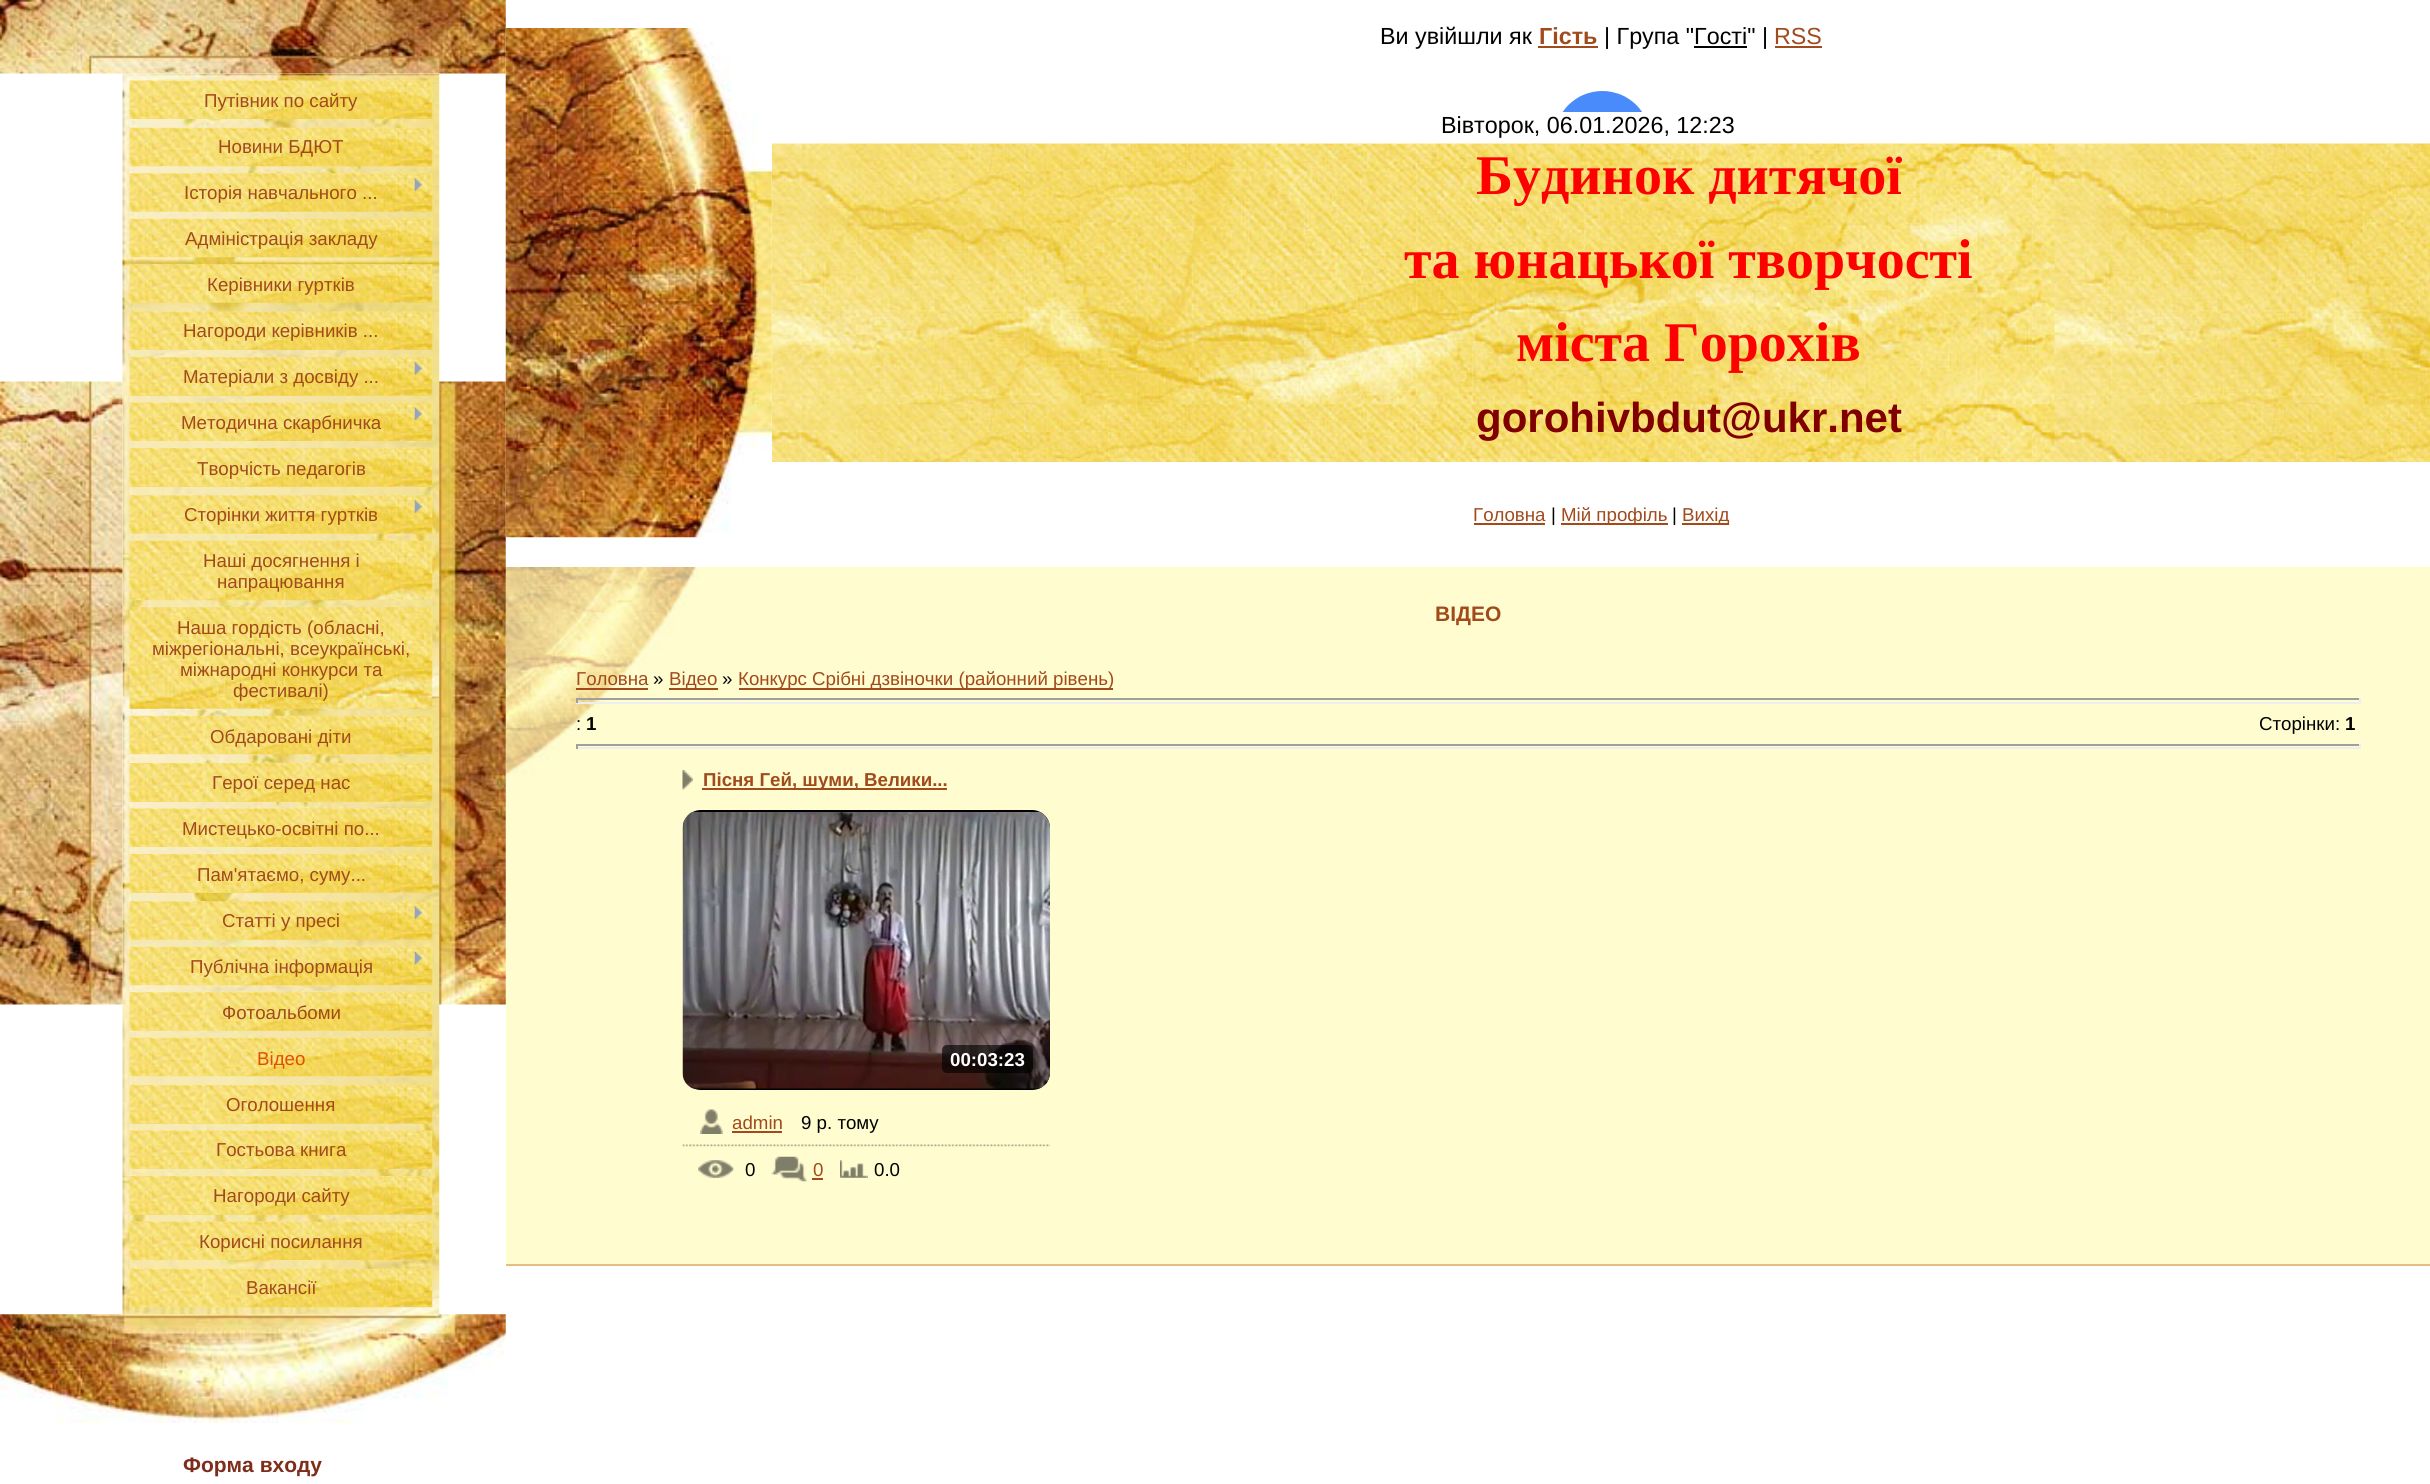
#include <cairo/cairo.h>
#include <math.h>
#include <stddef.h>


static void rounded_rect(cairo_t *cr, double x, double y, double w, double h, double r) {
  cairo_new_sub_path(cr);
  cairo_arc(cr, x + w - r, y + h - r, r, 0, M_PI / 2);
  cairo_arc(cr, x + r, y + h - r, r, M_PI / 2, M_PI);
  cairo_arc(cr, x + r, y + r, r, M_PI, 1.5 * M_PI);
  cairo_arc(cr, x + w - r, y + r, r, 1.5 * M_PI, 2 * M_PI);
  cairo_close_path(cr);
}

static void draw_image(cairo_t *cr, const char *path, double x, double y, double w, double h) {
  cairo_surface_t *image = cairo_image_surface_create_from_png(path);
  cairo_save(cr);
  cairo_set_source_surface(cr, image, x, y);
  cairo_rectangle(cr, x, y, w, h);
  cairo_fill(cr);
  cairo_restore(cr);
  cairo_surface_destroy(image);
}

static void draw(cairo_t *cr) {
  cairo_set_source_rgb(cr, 1, 1, 1);
  cairo_paint(cr);
  draw_image(cr, "images/3.png", 122, 73, 318, 1242);
  draw_image(cr, "images/1.png", 0, 0, 506, 74);
  draw_image(cr, "images/2.png", 0, 381, 123, 624);
  draw_image(cr, "images/4.png", 129, 80, 304, 39);
  draw_image(cr, "images/5.png", 129, 127, 304, 40);
  draw_image(cr, "images/6.png", 129, 173, 304, 39);
  draw_image(cr, "images/7.png", 414, 178, 8, 13);
  draw_image(cr, "images/8.png", 129, 218, 304, 40);
  draw_image(cr, "images/9.png", 129, 264, 304, 39);
  draw_image(cr, "images/10.png", 129, 311, 304, 39);
  cairo_set_source_rgb(cr, 242 / 255.0, 218 / 255.0, 108 / 255.0);
  cairo_rectangle(cr, 130, 395, 302, 1);
  cairo_fill(cr);
  draw_image(cr, "images/11.png", 129, 357, 304, 39);
  draw_image(cr, "images/12.png", 414, 362, 8, 13);
  draw_image(cr, "images/13.png", 129, 402, 304, 39);
  draw_image(cr, "images/14.png", 414, 407, 8, 13);
  cairo_rectangle(cr, 130, 486, 302, 1);
  cairo_fill(cr);
  draw_image(cr, "images/15.png", 129, 448, 304, 39);
  draw_image(cr, "images/16.png", 129, 495, 304, 39);
  draw_image(cr, "images/7.png", 414, 500, 8, 13);
  draw_image(cr, "images/17.png", 129, 540, 304, 61);
  draw_image(cr, "images/18.png", 129, 607, 304, 102);
  draw_image(cr, "images/19.png", 129, 715, 304, 40);
  cairo_rectangle(cr, 130, 801, 302, 1);
  cairo_fill(cr);
  draw_image(cr, "images/20.png", 129, 763, 304, 39);
  draw_image(cr, "images/21.png", 129, 808, 304, 39);
  cairo_rectangle(cr, 130, 892, 302, 1);
  cairo_fill(cr);
  draw_image(cr, "images/22.png", 129, 854, 304, 39);
  draw_image(cr, "images/23.png", 129, 901, 304, 39);
  draw_image(cr, "images/7.png", 414, 906, 8, 13);
  draw_image(cr, "images/24.png", 129, 946, 304, 40);
  draw_image(cr, "images/25.png", 414, 952, 8, 13);
  draw_image(cr, "images/26.png", 129, 992, 304, 39);
  draw_image(cr, "images/27.png", 129, 1037, 304, 40);
  cairo_rectangle(cr, 130, 1123, 302, 1);
  cairo_fill(cr);
  draw_image(cr, "images/28.png", 129, 1085, 304, 39);
  draw_image(cr, "images/29.png", 129, 1130, 304, 39);
  cairo_rectangle(cr, 130, 1214, 302, 1);
  cairo_fill(cr);
  draw_image(cr, "images/30.png", 129, 1176, 304, 39);
  draw_image(cr, "images/31.png", 129, 1221, 304, 39);
  draw_image(cr, "images/32.png", 129, 1268, 304, 40);
  cairo_set_source_rgb(cr, 1, 252 / 255.0, 208 / 255.0);
  cairo_rectangle(cr, 506, 567, 1924, 697);
  cairo_fill(cr);
  draw_image(cr, "images/38.png", 505, 567, 194, 215);
  draw_image(cr, "images/33.png", 439, 381, 67, 624);
  draw_image(cr, "images/34.png", 0, 1314, 506, 109);
  draw_image(cr, "images/37.png", 771, 143, 1659, 319);
  draw_image(cr, "images/35.png", 505, 28, 267, 510);
  cairo_set_source_rgb(cr, 161 / 255.0, 74 / 255.0, 28 / 255.0);
  cairo_rectangle(cr, 1538, 46, 60, 2);
  cairo_fill(cr);
  cairo_rectangle(cr, 1775, 46, 47, 2);
  cairo_fill(cr);
  cairo_set_source_rgb(cr, 0, 0, 0);
  cairo_rectangle(cr, 1694, 46, 53, 2);
  cairo_fill(cr);
  draw_image(cr, "images/36.png", 1562, 91, 80, 21);
  cairo_set_source_rgb(cr, 161 / 255.0, 74 / 255.0, 28 / 255.0);
  cairo_rectangle(cr, 1474, 523, 71, 2);
  cairo_fill(cr);
  cairo_rectangle(cr, 1561, 523, 107, 2);
  cairo_fill(cr);
  cairo_rectangle(cr, 1682, 523, 47, 2);
  cairo_fill(cr);
  cairo_set_source_rgb(cr, 229 / 255.0, 189 / 255.0, 133 / 255.0);
  cairo_rectangle(cr, 506, 1264, 1924, 2);
  cairo_fill(cr);
  cairo_set_source_rgb(cr, 161 / 255.0, 74 / 255.0, 28 / 255.0);
  cairo_rectangle(cr, 576, 688, 72, 2);
  cairo_fill(cr);
  cairo_rectangle(cr, 669, 688, 49, 2);
  cairo_fill(cr);
  cairo_rectangle(cr, 739, 688, 374, 2);
  cairo_fill(cr);
  cairo_set_source_rgb(cr, 159 / 255.0, 159 / 255.0, 159 / 255.0);
  cairo_rectangle(cr, 576, 698, 1785, 2);
  cairo_fill(cr);
  cairo_set_source_rgb(cr, 238 / 255.0, 238 / 255.0, 238 / 255.0);
  cairo_rectangle(cr, 2359, 698, 2, 5);
  cairo_fill(cr);
  cairo_rectangle(cr, 576, 702, 1785, 2);
  cairo_fill(cr);
  cairo_set_source_rgb(cr, 159 / 255.0, 159 / 255.0, 159 / 255.0);
  cairo_rectangle(cr, 576, 698, 2, 5);
  cairo_fill(cr);
  cairo_rectangle(cr, 576, 744, 1785, 2);
  cairo_fill(cr);
  cairo_set_source_rgb(cr, 238 / 255.0, 238 / 255.0, 238 / 255.0);
  cairo_rectangle(cr, 2359, 744, 2, 5);
  cairo_fill(cr);
  cairo_rectangle(cr, 576, 747, 1785, 2);
  cairo_fill(cr);
  cairo_set_source_rgb(cr, 159 / 255.0, 159 / 255.0, 159 / 255.0);
  cairo_rectangle(cr, 576, 744, 2, 5);
  cairo_fill(cr);
  draw_image(cr, "images/39.png", 682, 770, 11, 20);
  cairo_set_source_rgb(cr, 161 / 255.0, 74 / 255.0, 28 / 255.0);
  cairo_rectangle(cr, 702, 788, 245, 2);
  cairo_fill(cr);
  cairo_set_source_rgb(cr, 0, 0, 0);
  rounded_rect(cr, 683, 810, 367, 280, 18);
  cairo_fill(cr);
  draw_image(cr, "images/40.png", 682, 812, 368, 277);
  cairo_set_source_rgba(cr, 0, 0, 0, 0.63);
  rounded_rect(cr, 942, 1045, 91, 28, 5);
  cairo_fill(cr);
  draw_image(cr, "images/41.png", 682, 1144, 368, 3);
  draw_image(cr, "images/42.png", 700, 1109, 23, 25);
  cairo_set_source_rgb(cr, 161 / 255.0, 74 / 255.0, 28 / 255.0);
  cairo_rectangle(cr, 732, 1131, 50, 2);
  cairo_fill(cr);
  draw_image(cr, "images/43.png", 698, 1160, 36, 18);
  draw_image(cr, "images/44.png", 771, 1156, 36, 26);
  cairo_rectangle(cr, 812, 1178, 11, 2);
  cairo_fill(cr);
  draw_image(cr, "images/45.png", 840, 1160, 28, 18);
  cairo_select_font_face(cr, "Liberation Sans", CAIRO_FONT_SLANT_NORMAL, CAIRO_FONT_WEIGHT_NORMAL);
  cairo_set_font_size(cr, 18.7);
  cairo_move_to(cr, 204, 107);
  cairo_show_text(cr, "Путівник по сайту");
  cairo_move_to(cr, 218, 153);
  cairo_show_text(cr, "Новини БДЮТ");
  cairo_move_to(cr, 184, 199);
  cairo_show_text(cr, "Історія навчального ...");
  cairo_move_to(cr, 185, 245);
  cairo_show_text(cr, "Адміністрація закладу");
  cairo_move_to(cr, 207, 291);
  cairo_show_text(cr, "Керівники гуртків");
  cairo_move_to(cr, 183, 337);
  cairo_show_text(cr, "Нагороди керівників ...");
  cairo_move_to(cr, 183, 383);
  cairo_show_text(cr, "Матеріали з досвіду ...");
  cairo_move_to(cr, 181, 429);
  cairo_show_text(cr, "Методична скарбничка");
  cairo_move_to(cr, 197, 475);
  cairo_show_text(cr, "Творчість педагогів");
  cairo_move_to(cr, 184, 521);
  cairo_show_text(cr, "Сторінки життя гуртків");
  cairo_move_to(cr, 203, 567);
  cairo_show_text(cr, "Наші досягнення і");
  cairo_move_to(cr, 217, 588);
  cairo_show_text(cr, "напрацювання");
  cairo_move_to(cr, 177, 634);
  cairo_show_text(cr, "Наша гордість (обласні,");
  cairo_move_to(cr, 152, 655);
  cairo_show_text(cr, "міжрегіональні, всеукраїнські,");
  cairo_move_to(cr, 180, 676);
  cairo_show_text(cr, "міжнародні конкурси та");
  cairo_move_to(cr, 233, 697);
  cairo_show_text(cr, "фестивалі)");
  cairo_move_to(cr, 210, 743);
  cairo_show_text(cr, "Обдаровані діти");
  cairo_move_to(cr, 212, 789);
  cairo_show_text(cr, "Герої серед нас");
  cairo_move_to(cr, 182, 835);
  cairo_show_text(cr, "Мистецько-освітні по...");
  cairo_move_to(cr, 197, 881);
  cairo_show_text(cr, "Пам'ятаємо, суму...");
  cairo_move_to(cr, 222, 927);
  cairo_show_text(cr, "Статті у пресі");
  cairo_move_to(cr, 190, 973);
  cairo_show_text(cr, "Публічна інформація");
  cairo_move_to(cr, 222, 1019);
  cairo_show_text(cr, "Фотоальбоми");
  cairo_set_source_rgb(cr, 227 / 255.0, 78 / 255.0, 0);
  cairo_move_to(cr, 257, 1065);
  cairo_show_text(cr, "Відео");
  cairo_set_source_rgb(cr, 161 / 255.0, 74 / 255.0, 28 / 255.0);
  cairo_move_to(cr, 226, 1111);
  cairo_show_text(cr, "Оголошення");
  cairo_move_to(cr, 216, 1156);
  cairo_show_text(cr, "Гостьова книга");
  cairo_move_to(cr, 213, 1202);
  cairo_show_text(cr, "Нагороди сайту");
  cairo_move_to(cr, 199, 1248);
  cairo_show_text(cr, "Корисні посилання");
  cairo_move_to(cr, 246, 1294);
  cairo_show_text(cr, "Вакансії");
  cairo_select_font_face(cr, "Liberation Sans", CAIRO_FONT_SLANT_NORMAL, CAIRO_FONT_WEIGHT_BOLD);
  cairo_set_font_size(cr, 21);
  cairo_set_source_rgb(cr, 125 / 255.0, 45 / 255.0, 26 / 255.0);
  cairo_move_to(cr, 183, 1472);
  cairo_show_text(cr, "Форма входу");
  cairo_select_font_face(cr, "Liberation Sans", CAIRO_FONT_SLANT_NORMAL, CAIRO_FONT_WEIGHT_NORMAL);
  cairo_set_font_size(cr, 23.3);
  cairo_set_source_rgb(cr, 0, 0, 0);
  cairo_move_to(cr, 1380, 44);
  cairo_show_text(cr, "Ви увійшли як");
  cairo_select_font_face(cr, "Liberation Sans", CAIRO_FONT_SLANT_NORMAL, CAIRO_FONT_WEIGHT_BOLD);
  cairo_set_source_rgb(cr, 161 / 255.0, 74 / 255.0, 28 / 255.0);
  cairo_move_to(cr, 1539, 44);
  cairo_show_text(cr, "Гість");
  cairo_select_font_face(cr, "Liberation Sans", CAIRO_FONT_SLANT_NORMAL, CAIRO_FONT_WEIGHT_NORMAL);
  cairo_set_source_rgb(cr, 0, 0, 0);
  cairo_move_to(cr, 1604, 44);
  cairo_show_text(cr, "| Група \"Гості\" |");
  cairo_set_source_rgb(cr, 161 / 255.0, 74 / 255.0, 28 / 255.0);
  cairo_move_to(cr, 1774, 44);
  cairo_show_text(cr, "RSS");
  cairo_set_source_rgb(cr, 0, 0, 0);
  cairo_move_to(cr, 1441, 133);
  cairo_show_text(cr, "Вівторок, 06.01.2026, 12:23");
  cairo_select_font_face(cr, "Liberation Serif", CAIRO_FONT_SLANT_NORMAL, CAIRO_FONT_WEIGHT_BOLD);
  cairo_set_font_size(cr, 56);
  cairo_set_source_rgb(cr, 1, 0, 0);
  cairo_move_to(cr, 1476, 194);
  cairo_show_text(cr, "Будинок дитячої");
  cairo_move_to(cr, 1404, 278);
  cairo_show_text(cr, "та юнацької творчості");
  cairo_move_to(cr, 1516, 361);
  cairo_show_text(cr, "міста Горохів");
  cairo_select_font_face(cr, "Liberation Sans", CAIRO_FONT_SLANT_NORMAL, CAIRO_FONT_WEIGHT_BOLD);
  cairo_set_font_size(cr, 42);
  cairo_set_source_rgb(cr, 128 / 255.0, 0, 0);
  cairo_move_to(cr, 1476, 432);
  cairo_show_text(cr, "gorohivbdut@ukr.net");
  cairo_select_font_face(cr, "Liberation Sans", CAIRO_FONT_SLANT_NORMAL, CAIRO_FONT_WEIGHT_NORMAL);
  cairo_set_font_size(cr, 18.7);
  cairo_set_source_rgb(cr, 161 / 255.0, 74 / 255.0, 28 / 255.0);
  cairo_move_to(cr, 1473, 521);
  cairo_show_text(cr, "Головна");
  cairo_set_source_rgb(cr, 0, 0, 0);
  cairo_move_to(cr, 1551, 521);
  cairo_show_text(cr, "|");
  cairo_set_source_rgb(cr, 161 / 255.0, 74 / 255.0, 28 / 255.0);
  cairo_move_to(cr, 1561, 521);
  cairo_show_text(cr, "Мій профіль");
  cairo_set_source_rgb(cr, 0, 0, 0);
  cairo_move_to(cr, 1672, 521);
  cairo_show_text(cr, "|");
  cairo_set_source_rgb(cr, 161 / 255.0, 74 / 255.0, 28 / 255.0);
  cairo_move_to(cr, 1682, 521);
  cairo_show_text(cr, "Вихід");
  cairo_select_font_face(cr, "Liberation Sans", CAIRO_FONT_SLANT_NORMAL, CAIRO_FONT_WEIGHT_BOLD);
  cairo_set_font_size(cr, 21);
  cairo_move_to(cr, 1435, 621);
  cairo_show_text(cr, "ВІДЕО");
  cairo_select_font_face(cr, "Liberation Sans", CAIRO_FONT_SLANT_NORMAL, CAIRO_FONT_WEIGHT_NORMAL);
  cairo_set_font_size(cr, 18.7);
  cairo_move_to(cr, 576, 685);
  cairo_show_text(cr, "Головна");
  cairo_set_source_rgb(cr, 0, 0, 0);
  cairo_move_to(cr, 653, 685);
  cairo_show_text(cr, "»");
  cairo_set_source_rgb(cr, 161 / 255.0, 74 / 255.0, 28 / 255.0);
  cairo_move_to(cr, 669, 685);
  cairo_show_text(cr, "Відео");
  cairo_set_source_rgb(cr, 0, 0, 0);
  cairo_move_to(cr, 722, 685);
  cairo_show_text(cr, "»");
  cairo_set_source_rgb(cr, 161 / 255.0, 74 / 255.0, 28 / 255.0);
  cairo_move_to(cr, 738, 685);
  cairo_show_text(cr, "Конкурс Срібні дзвіночки (районний рівень)");
  cairo_set_source_rgb(cr, 0, 0, 0);
  cairo_move_to(cr, 576, 730);
  cairo_show_text(cr, ":");
  cairo_select_font_face(cr, "Liberation Sans", CAIRO_FONT_SLANT_NORMAL, CAIRO_FONT_WEIGHT_BOLD);
  cairo_move_to(cr, 586, 730);
  cairo_show_text(cr, "1");
  cairo_select_font_face(cr, "Liberation Sans", CAIRO_FONT_SLANT_NORMAL, CAIRO_FONT_WEIGHT_NORMAL);
  cairo_move_to(cr, 2259, 730);
  cairo_show_text(cr, "Сторінки:");
  cairo_select_font_face(cr, "Liberation Sans", CAIRO_FONT_SLANT_NORMAL, CAIRO_FONT_WEIGHT_BOLD);
  cairo_move_to(cr, 2345, 730);
  cairo_show_text(cr, "1");
  cairo_set_source_rgb(cr, 161 / 255.0, 74 / 255.0, 28 / 255.0);
  cairo_move_to(cr, 703, 786);
  cairo_show_text(cr, "Пісня Гей, шуми, Велики...");
  cairo_set_source_rgb(cr, 1, 1, 1);
  cairo_move_to(cr, 950, 1066);
  cairo_show_text(cr, "00:03:23");
  cairo_select_font_face(cr, "Liberation Sans", CAIRO_FONT_SLANT_NORMAL, CAIRO_FONT_WEIGHT_NORMAL);
  cairo_set_source_rgb(cr, 161 / 255.0, 74 / 255.0, 28 / 255.0);
  cairo_move_to(cr, 732, 1129);
  cairo_show_text(cr, "admin");
  cairo_set_source_rgb(cr, 0, 0, 0);
  cairo_move_to(cr, 801, 1129);
  cairo_show_text(cr, "9 р. тому");
  cairo_move_to(cr, 745, 1176);
  cairo_show_text(cr, "0");
  cairo_set_source_rgb(cr, 161 / 255.0, 74 / 255.0, 28 / 255.0);
  cairo_move_to(cr, 813, 1176);
  cairo_show_text(cr, "0");
  cairo_set_source_rgb(cr, 0, 0, 0);
  cairo_move_to(cr, 874, 1176);
  cairo_show_text(cr, "0.0");
}

int main(void) {
  cairo_surface_t *surface = cairo_image_surface_create(CAIRO_FORMAT_RGB24, 2430, 1484);
  cairo_t *cr = cairo_create(surface);
  cairo_font_options_t *options = cairo_font_options_create();
  cairo_font_options_set_hint_metrics(options, CAIRO_HINT_METRICS_OFF);
  cairo_font_options_set_hint_style(options, CAIRO_HINT_STYLE_NONE);
  cairo_set_font_options(cr, options);
  cairo_set_miter_limit(cr, 4);
  draw(cr);
  cairo_surface_write_to_png(surface, "out.png");
  cairo_font_options_destroy(options);
  cairo_destroy(cr);
  cairo_surface_destroy(surface);
  return 0;
}
